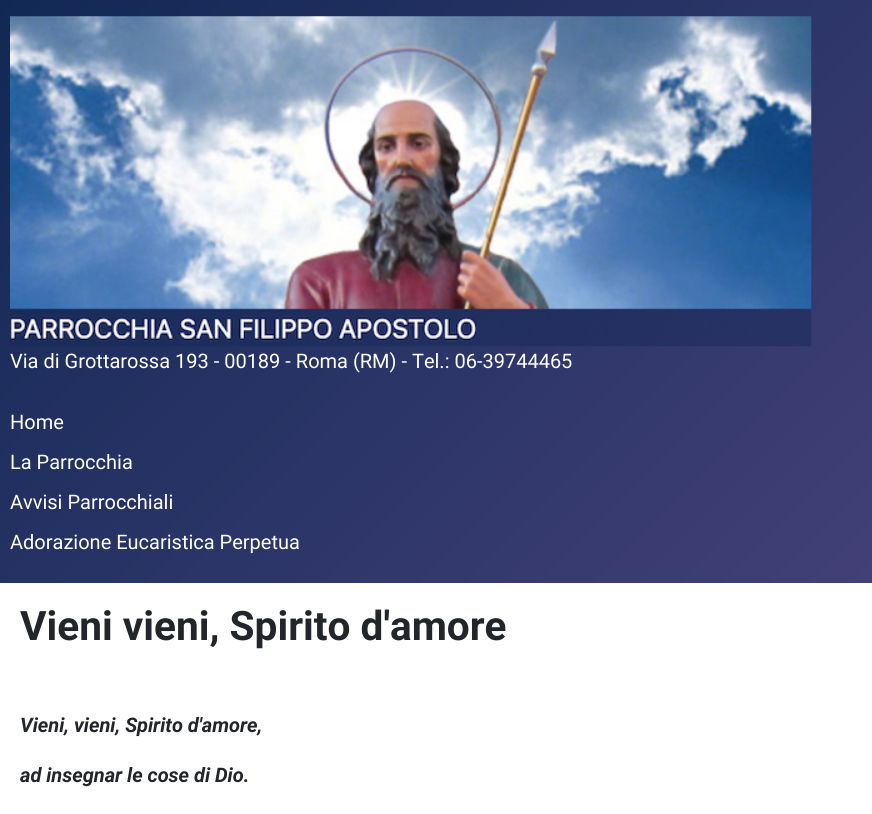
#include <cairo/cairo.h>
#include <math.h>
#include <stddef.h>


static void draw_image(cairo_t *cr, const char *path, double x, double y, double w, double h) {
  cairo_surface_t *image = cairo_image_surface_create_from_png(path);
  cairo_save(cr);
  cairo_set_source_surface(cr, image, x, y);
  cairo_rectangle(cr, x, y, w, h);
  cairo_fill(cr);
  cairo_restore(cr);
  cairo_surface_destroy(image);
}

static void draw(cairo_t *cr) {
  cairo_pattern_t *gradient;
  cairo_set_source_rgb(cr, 1, 1, 1);
  cairo_paint(cr);
  gradient = cairo_pattern_create_linear(72, -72, 800, 655);
  cairo_pattern_add_color_stop_rgba(gradient, 0, 17 / 255.0, 40 / 255.0, 85 / 255.0, 1);
  cairo_pattern_add_color_stop_rgba(gradient, 1, 66 / 255.0, 64 / 255.0, 119 / 255.0, 1);
  cairo_set_source(cr, gradient);
  cairo_pattern_destroy(gradient);
  cairo_rectangle(cr, 0, 0, 872, 583);
  cairo_fill(cr);
  draw_image(cr, "images/1.png", 10, 16, 802, 331);
  cairo_select_font_face(cr, "Roboto", CAIRO_FONT_SLANT_NORMAL, CAIRO_FONT_WEIGHT_NORMAL);
  cairo_set_font_size(cr, 20);
  cairo_set_source_rgb(cr, 1, 1, 1);
  cairo_move_to(cr, 10, 368);
  cairo_show_text(cr, "Via di Grottarossa 193 - 00189 - Roma (RM) - Tel.: 06-39744465");
  cairo_move_to(cr, 10, 429);
  cairo_show_text(cr, "Home");
  cairo_move_to(cr, 10, 469);
  cairo_show_text(cr, "La Parrocchia");
  cairo_move_to(cr, 10, 509);
  cairo_show_text(cr, "Avvisi Parrocchiali");
  cairo_move_to(cr, 10, 549);
  cairo_show_text(cr, "Adorazione Eucaristica Perpetua");
  cairo_select_font_face(cr, "Roboto", CAIRO_FONT_SLANT_NORMAL, CAIRO_FONT_WEIGHT_BOLD);
  cairo_set_font_size(cr, 40.6);
  cairo_set_source_rgb(cr, 34 / 255.0, 38 / 255.0, 42 / 255.0);
  cairo_move_to(cr, 20, 640);
  cairo_show_text(cr, "Vieni vieni, Spirito d'amore");
  cairo_select_font_face(cr, "Roboto", CAIRO_FONT_SLANT_ITALIC, CAIRO_FONT_WEIGHT_BOLD);
  cairo_set_font_size(cr, 20);
  cairo_move_to(cr, 20, 732);
  cairo_show_text(cr, "Vieni, vieni, Spirito d'amore,");
  cairo_move_to(cr, 20, 782);
  cairo_show_text(cr, "ad insegnar le cose di Dio.");
}

int main(void) {
  cairo_surface_t *surface = cairo_image_surface_create(CAIRO_FORMAT_RGB24, 872, 814);
  cairo_t *cr = cairo_create(surface);
  cairo_font_options_t *options = cairo_font_options_create();
  cairo_font_options_set_hint_metrics(options, CAIRO_HINT_METRICS_OFF);
  cairo_font_options_set_hint_style(options, CAIRO_HINT_STYLE_NONE);
  cairo_set_font_options(cr, options);
  cairo_set_miter_limit(cr, 4);
  draw(cr);
  cairo_surface_write_to_png(surface, "out.png");
  cairo_font_options_destroy(options);
  cairo_destroy(cr);
  cairo_surface_destroy(surface);
  return 0;
}
